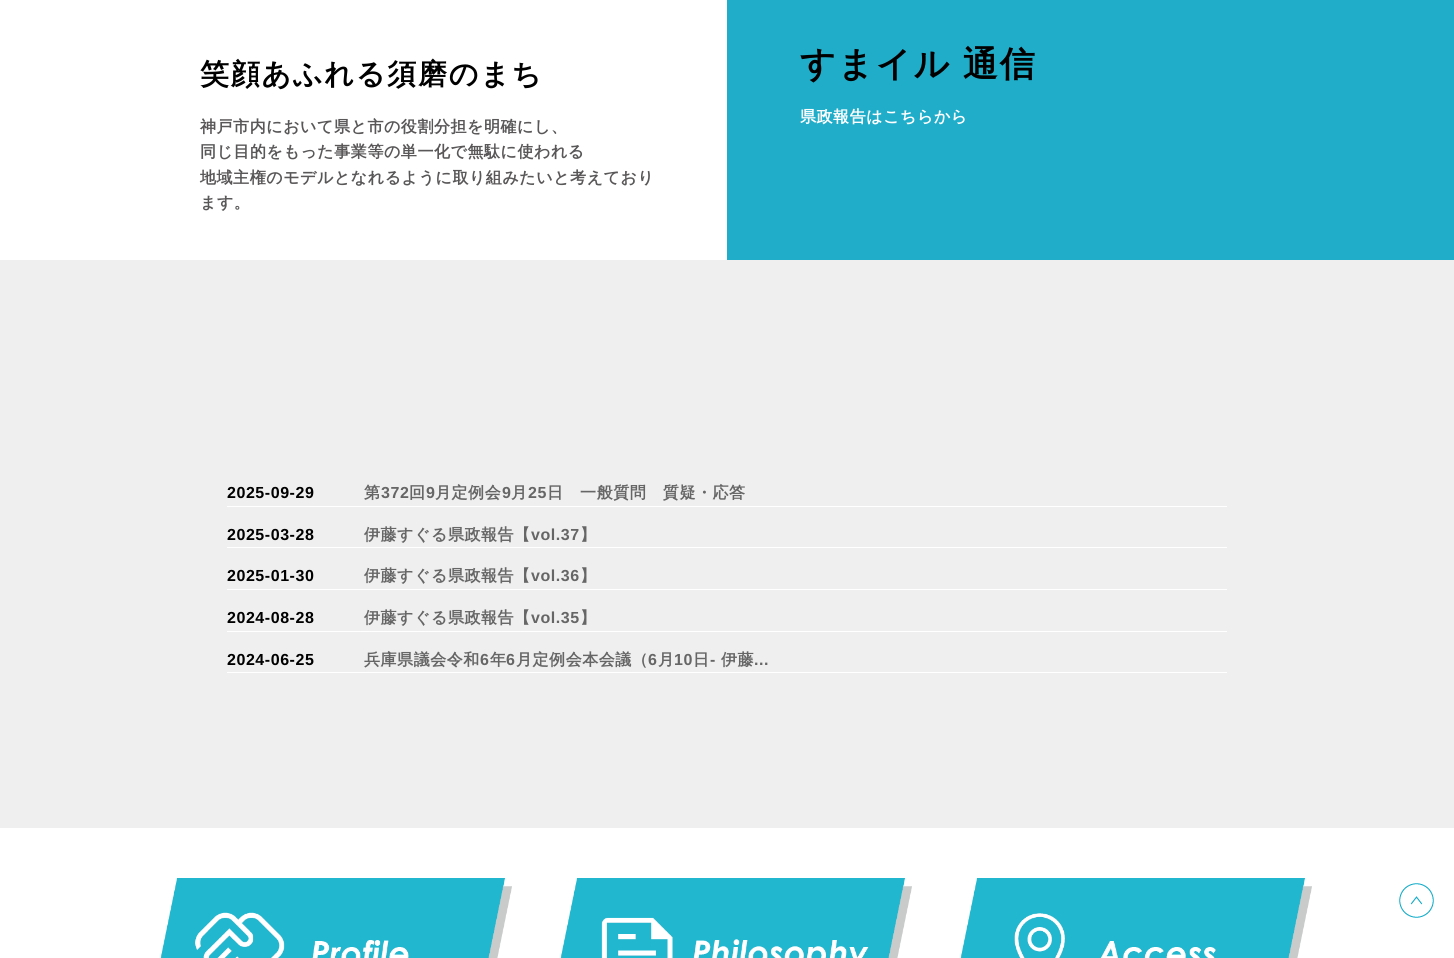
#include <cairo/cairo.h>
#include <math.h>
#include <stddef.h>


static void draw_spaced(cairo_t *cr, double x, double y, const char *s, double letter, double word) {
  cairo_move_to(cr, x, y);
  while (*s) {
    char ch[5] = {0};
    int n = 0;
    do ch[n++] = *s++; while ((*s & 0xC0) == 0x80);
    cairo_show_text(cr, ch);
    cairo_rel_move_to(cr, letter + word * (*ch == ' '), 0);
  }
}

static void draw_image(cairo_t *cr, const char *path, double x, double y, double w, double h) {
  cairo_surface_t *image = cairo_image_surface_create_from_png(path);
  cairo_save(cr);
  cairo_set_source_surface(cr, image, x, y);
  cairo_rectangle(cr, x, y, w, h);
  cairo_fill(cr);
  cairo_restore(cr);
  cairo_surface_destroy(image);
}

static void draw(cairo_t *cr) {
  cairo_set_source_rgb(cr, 239 / 255.0, 239 / 255.0, 239 / 255.0);
  cairo_paint(cr);
  cairo_set_source_rgb(cr, 1, 1, 1);
  cairo_rectangle(cr, 0, 0, 727, 260);
  cairo_fill(cr);
  cairo_set_source_rgb(cr, 32 / 255.0, 173 / 255.0, 202 / 255.0);
  cairo_rectangle(cr, 727, 0, 727, 260);
  cairo_fill(cr);
  cairo_set_source_rgb(cr, 1, 1, 1);
  cairo_rectangle(cr, 227, 506, 1000, 1);
  cairo_fill(cr);
  cairo_rectangle(cr, 227, 547, 1000, 1);
  cairo_fill(cr);
  cairo_rectangle(cr, 227, 589, 1000, 1);
  cairo_fill(cr);
  cairo_rectangle(cr, 227, 631, 1000, 1);
  cairo_fill(cr);
  cairo_rectangle(cr, 227, 672, 1000, 1);
  cairo_fill(cr);
  cairo_rectangle(cr, 0, 828, 1454, 130);
  cairo_fill(cr);
  draw_image(cr, "images/1.png", 160, 878, 352, 80);
  draw_image(cr, "images/2.png", 560, 878, 352, 80);
  draw_image(cr, "images/3.png", 960, 878, 352, 80);
  draw_image(cr, "images/4.png", 1399, 883, 35, 35);
  cairo_select_font_face(cr, "WenQuanYi Zen Hei", CAIRO_FONT_SLANT_NORMAL, CAIRO_FONT_WEIGHT_BOLD);
  cairo_set_font_size(cr, 29);
  cairo_set_source_rgb(cr, 0, 0, 0);
  draw_spaced(cr, 200, 84, "笑顔あふれる須磨のまち", 1.75, 0);
  cairo_set_font_size(cr, 16);
  cairo_set_source_rgb(cr, 89 / 255.0, 87 / 255.0, 87 / 255.0);
  draw_spaced(cr, 200, 132, "神戸市内において県と市の役割分担を明確にし、", 0.55, 0);
  draw_spaced(cr, 200, 157, "同じ目的をもった事業等の単一化で無駄に使われる", 0.55, 0);
  draw_spaced(cr, 200, 183, "地域主権のモデルとなれるように取り組みたいと考えており", 0.55, 0);
  draw_spaced(cr, 200, 208, "ます。", 0.55, 0);
  cairo_set_font_size(cr, 35);
  cairo_set_source_rgb(cr, 0, 0, 0);
  draw_spaced(cr, 800, 76, "すまイル 通信", 2, -1);
  cairo_set_font_size(cr, 16);
  cairo_set_source_rgb(cr, 1, 1, 1);
  draw_spaced(cr, 800, 122, "県政報告はこちらから", 0.55, 0);
  cairo_select_font_face(cr, "Liberation Sans", CAIRO_FONT_SLANT_NORMAL, CAIRO_FONT_WEIGHT_BOLD);
  cairo_set_source_rgb(cr, 0, 0, 0);
  draw_spaced(cr, 227, 498, "2025-09-29", 0.55, 0);
  cairo_select_font_face(cr, "WenQuanYi Zen Hei", CAIRO_FONT_SLANT_NORMAL, CAIRO_FONT_WEIGHT_BOLD);
  cairo_set_source_rgb(cr, 102 / 255.0, 102 / 255.0, 102 / 255.0);
  draw_spaced(cr, 364, 498, "第", 0.55, 0);
  cairo_select_font_face(cr, "Liberation Sans", CAIRO_FONT_SLANT_NORMAL, CAIRO_FONT_WEIGHT_BOLD);
  draw_spaced(cr, 381, 498, "372", 0.55, 0);
  cairo_select_font_face(cr, "WenQuanYi Zen Hei", CAIRO_FONT_SLANT_NORMAL, CAIRO_FONT_WEIGHT_BOLD);
  draw_spaced(cr, 409, 498, "回", 0.55, 0);
  cairo_select_font_face(cr, "Liberation Sans", CAIRO_FONT_SLANT_NORMAL, CAIRO_FONT_WEIGHT_BOLD);
  draw_spaced(cr, 426, 498, "9", 0.55, 0);
  cairo_select_font_face(cr, "WenQuanYi Zen Hei", CAIRO_FONT_SLANT_NORMAL, CAIRO_FONT_WEIGHT_BOLD);
  draw_spaced(cr, 435, 498, "月定例会", 0.55, 0);
  cairo_select_font_face(cr, "Liberation Sans", CAIRO_FONT_SLANT_NORMAL, CAIRO_FONT_WEIGHT_BOLD);
  draw_spaced(cr, 502, 498, "9", 0.55, 0);
  cairo_select_font_face(cr, "WenQuanYi Zen Hei", CAIRO_FONT_SLANT_NORMAL, CAIRO_FONT_WEIGHT_BOLD);
  draw_spaced(cr, 511, 498, "月", 0.55, 0);
  cairo_select_font_face(cr, "Liberation Sans", CAIRO_FONT_SLANT_NORMAL, CAIRO_FONT_WEIGHT_BOLD);
  draw_spaced(cr, 528, 498, "25", 0.55, 0);
  cairo_select_font_face(cr, "WenQuanYi Zen Hei", CAIRO_FONT_SLANT_NORMAL, CAIRO_FONT_WEIGHT_BOLD);
  draw_spaced(cr, 547, 498, "日　一般質問　質疑・応答", 0.55, 0);
  cairo_select_font_face(cr, "Liberation Sans", CAIRO_FONT_SLANT_NORMAL, CAIRO_FONT_WEIGHT_BOLD);
  cairo_set_source_rgb(cr, 0, 0, 0);
  draw_spaced(cr, 227, 540, "2025-03-28", 0.55, 0);
  cairo_select_font_face(cr, "WenQuanYi Zen Hei", CAIRO_FONT_SLANT_NORMAL, CAIRO_FONT_WEIGHT_BOLD);
  cairo_set_source_rgb(cr, 102 / 255.0, 102 / 255.0, 102 / 255.0);
  draw_spaced(cr, 364, 540, "伊藤すぐる県政報告【", 0.55, 0);
  cairo_select_font_face(cr, "Liberation Sans", CAIRO_FONT_SLANT_NORMAL, CAIRO_FONT_WEIGHT_BOLD);
  draw_spaced(cr, 531, 540, "vol.37", 0.55, 0);
  cairo_select_font_face(cr, "WenQuanYi Zen Hei", CAIRO_FONT_SLANT_NORMAL, CAIRO_FONT_WEIGHT_BOLD);
  draw_spaced(cr, 580, 540, "】", 0.55, 0);
  cairo_select_font_face(cr, "Liberation Sans", CAIRO_FONT_SLANT_NORMAL, CAIRO_FONT_WEIGHT_BOLD);
  cairo_set_source_rgb(cr, 0, 0, 0);
  draw_spaced(cr, 227, 581, "2025-01-30", 0.55, 0);
  cairo_select_font_face(cr, "WenQuanYi Zen Hei", CAIRO_FONT_SLANT_NORMAL, CAIRO_FONT_WEIGHT_BOLD);
  cairo_set_source_rgb(cr, 102 / 255.0, 102 / 255.0, 102 / 255.0);
  draw_spaced(cr, 364, 581, "伊藤すぐる県政報告【", 0.55, 0);
  cairo_select_font_face(cr, "Liberation Sans", CAIRO_FONT_SLANT_NORMAL, CAIRO_FONT_WEIGHT_BOLD);
  draw_spaced(cr, 531, 581, "vol.36", 0.55, 0);
  cairo_select_font_face(cr, "WenQuanYi Zen Hei", CAIRO_FONT_SLANT_NORMAL, CAIRO_FONT_WEIGHT_BOLD);
  draw_spaced(cr, 580, 581, "】", 0.55, 0);
  cairo_select_font_face(cr, "Liberation Sans", CAIRO_FONT_SLANT_NORMAL, CAIRO_FONT_WEIGHT_BOLD);
  cairo_set_source_rgb(cr, 0, 0, 0);
  draw_spaced(cr, 227, 623, "2024-08-28", 0.55, 0);
  cairo_select_font_face(cr, "WenQuanYi Zen Hei", CAIRO_FONT_SLANT_NORMAL, CAIRO_FONT_WEIGHT_BOLD);
  cairo_set_source_rgb(cr, 102 / 255.0, 102 / 255.0, 102 / 255.0);
  draw_spaced(cr, 364, 623, "伊藤すぐる県政報告【", 0.55, 0);
  cairo_select_font_face(cr, "Liberation Sans", CAIRO_FONT_SLANT_NORMAL, CAIRO_FONT_WEIGHT_BOLD);
  draw_spaced(cr, 531, 623, "vol.35", 0.55, 0);
  cairo_select_font_face(cr, "WenQuanYi Zen Hei", CAIRO_FONT_SLANT_NORMAL, CAIRO_FONT_WEIGHT_BOLD);
  draw_spaced(cr, 580, 623, "】", 0.55, 0);
  cairo_select_font_face(cr, "Liberation Sans", CAIRO_FONT_SLANT_NORMAL, CAIRO_FONT_WEIGHT_BOLD);
  cairo_set_source_rgb(cr, 0, 0, 0);
  draw_spaced(cr, 227, 665, "2024-06-25", 0.55, 0);
  cairo_select_font_face(cr, "WenQuanYi Zen Hei", CAIRO_FONT_SLANT_NORMAL, CAIRO_FONT_WEIGHT_BOLD);
  cairo_set_source_rgb(cr, 102 / 255.0, 102 / 255.0, 102 / 255.0);
  draw_spaced(cr, 364, 665, "兵庫県議会令和", 0.55, 0);
  cairo_select_font_face(cr, "Liberation Sans", CAIRO_FONT_SLANT_NORMAL, CAIRO_FONT_WEIGHT_BOLD);
  draw_spaced(cr, 480, 665, "6", 0.55, 0);
  cairo_select_font_face(cr, "WenQuanYi Zen Hei", CAIRO_FONT_SLANT_NORMAL, CAIRO_FONT_WEIGHT_BOLD);
  draw_spaced(cr, 490, 665, "年", 0.55, 0);
  cairo_select_font_face(cr, "Liberation Sans", CAIRO_FONT_SLANT_NORMAL, CAIRO_FONT_WEIGHT_BOLD);
  draw_spaced(cr, 506, 665, "6", 0.55, 0);
  cairo_select_font_face(cr, "WenQuanYi Zen Hei", CAIRO_FONT_SLANT_NORMAL, CAIRO_FONT_WEIGHT_BOLD);
  draw_spaced(cr, 516, 665, "月定例会本会議（", 0.55, 0);
  cairo_select_font_face(cr, "Liberation Sans", CAIRO_FONT_SLANT_NORMAL, CAIRO_FONT_WEIGHT_BOLD);
  draw_spaced(cr, 648, 665, "6", 0.55, 0);
  cairo_select_font_face(cr, "WenQuanYi Zen Hei", CAIRO_FONT_SLANT_NORMAL, CAIRO_FONT_WEIGHT_BOLD);
  draw_spaced(cr, 658, 665, "月", 0.55, 0);
  cairo_select_font_face(cr, "Liberation Sans", CAIRO_FONT_SLANT_NORMAL, CAIRO_FONT_WEIGHT_BOLD);
  draw_spaced(cr, 674, 665, "10", 0.55, 0);
  cairo_select_font_face(cr, "WenQuanYi Zen Hei", CAIRO_FONT_SLANT_NORMAL, CAIRO_FONT_WEIGHT_BOLD);
  draw_spaced(cr, 693, 665, "日", 0.55, 0);
  cairo_select_font_face(cr, "Liberation Sans", CAIRO_FONT_SLANT_NORMAL, CAIRO_FONT_WEIGHT_BOLD);
  draw_spaced(cr, 710, 665, "-", 0.55, 0);
  cairo_select_font_face(cr, "WenQuanYi Zen Hei", CAIRO_FONT_SLANT_NORMAL, CAIRO_FONT_WEIGHT_BOLD);
  draw_spaced(cr, 721, 665, "伊藤", 0.55, 0);
  cairo_select_font_face(cr, "Liberation Sans", CAIRO_FONT_SLANT_NORMAL, CAIRO_FONT_WEIGHT_BOLD);
  draw_spaced(cr, 754, 665, "...", 0.55, 0);
}

int main(void) {
  cairo_surface_t *surface = cairo_image_surface_create(CAIRO_FORMAT_RGB24, 1454, 958);
  cairo_t *cr = cairo_create(surface);
  cairo_font_options_t *options = cairo_font_options_create();
  cairo_font_options_set_hint_metrics(options, CAIRO_HINT_METRICS_OFF);
  cairo_font_options_set_hint_style(options, CAIRO_HINT_STYLE_NONE);
  cairo_set_font_options(cr, options);
  cairo_set_miter_limit(cr, 4);
  draw(cr);
  cairo_surface_write_to_png(surface, "out.png");
  cairo_font_options_destroy(options);
  cairo_destroy(cr);
  cairo_surface_destroy(surface);
  return 0;
}
